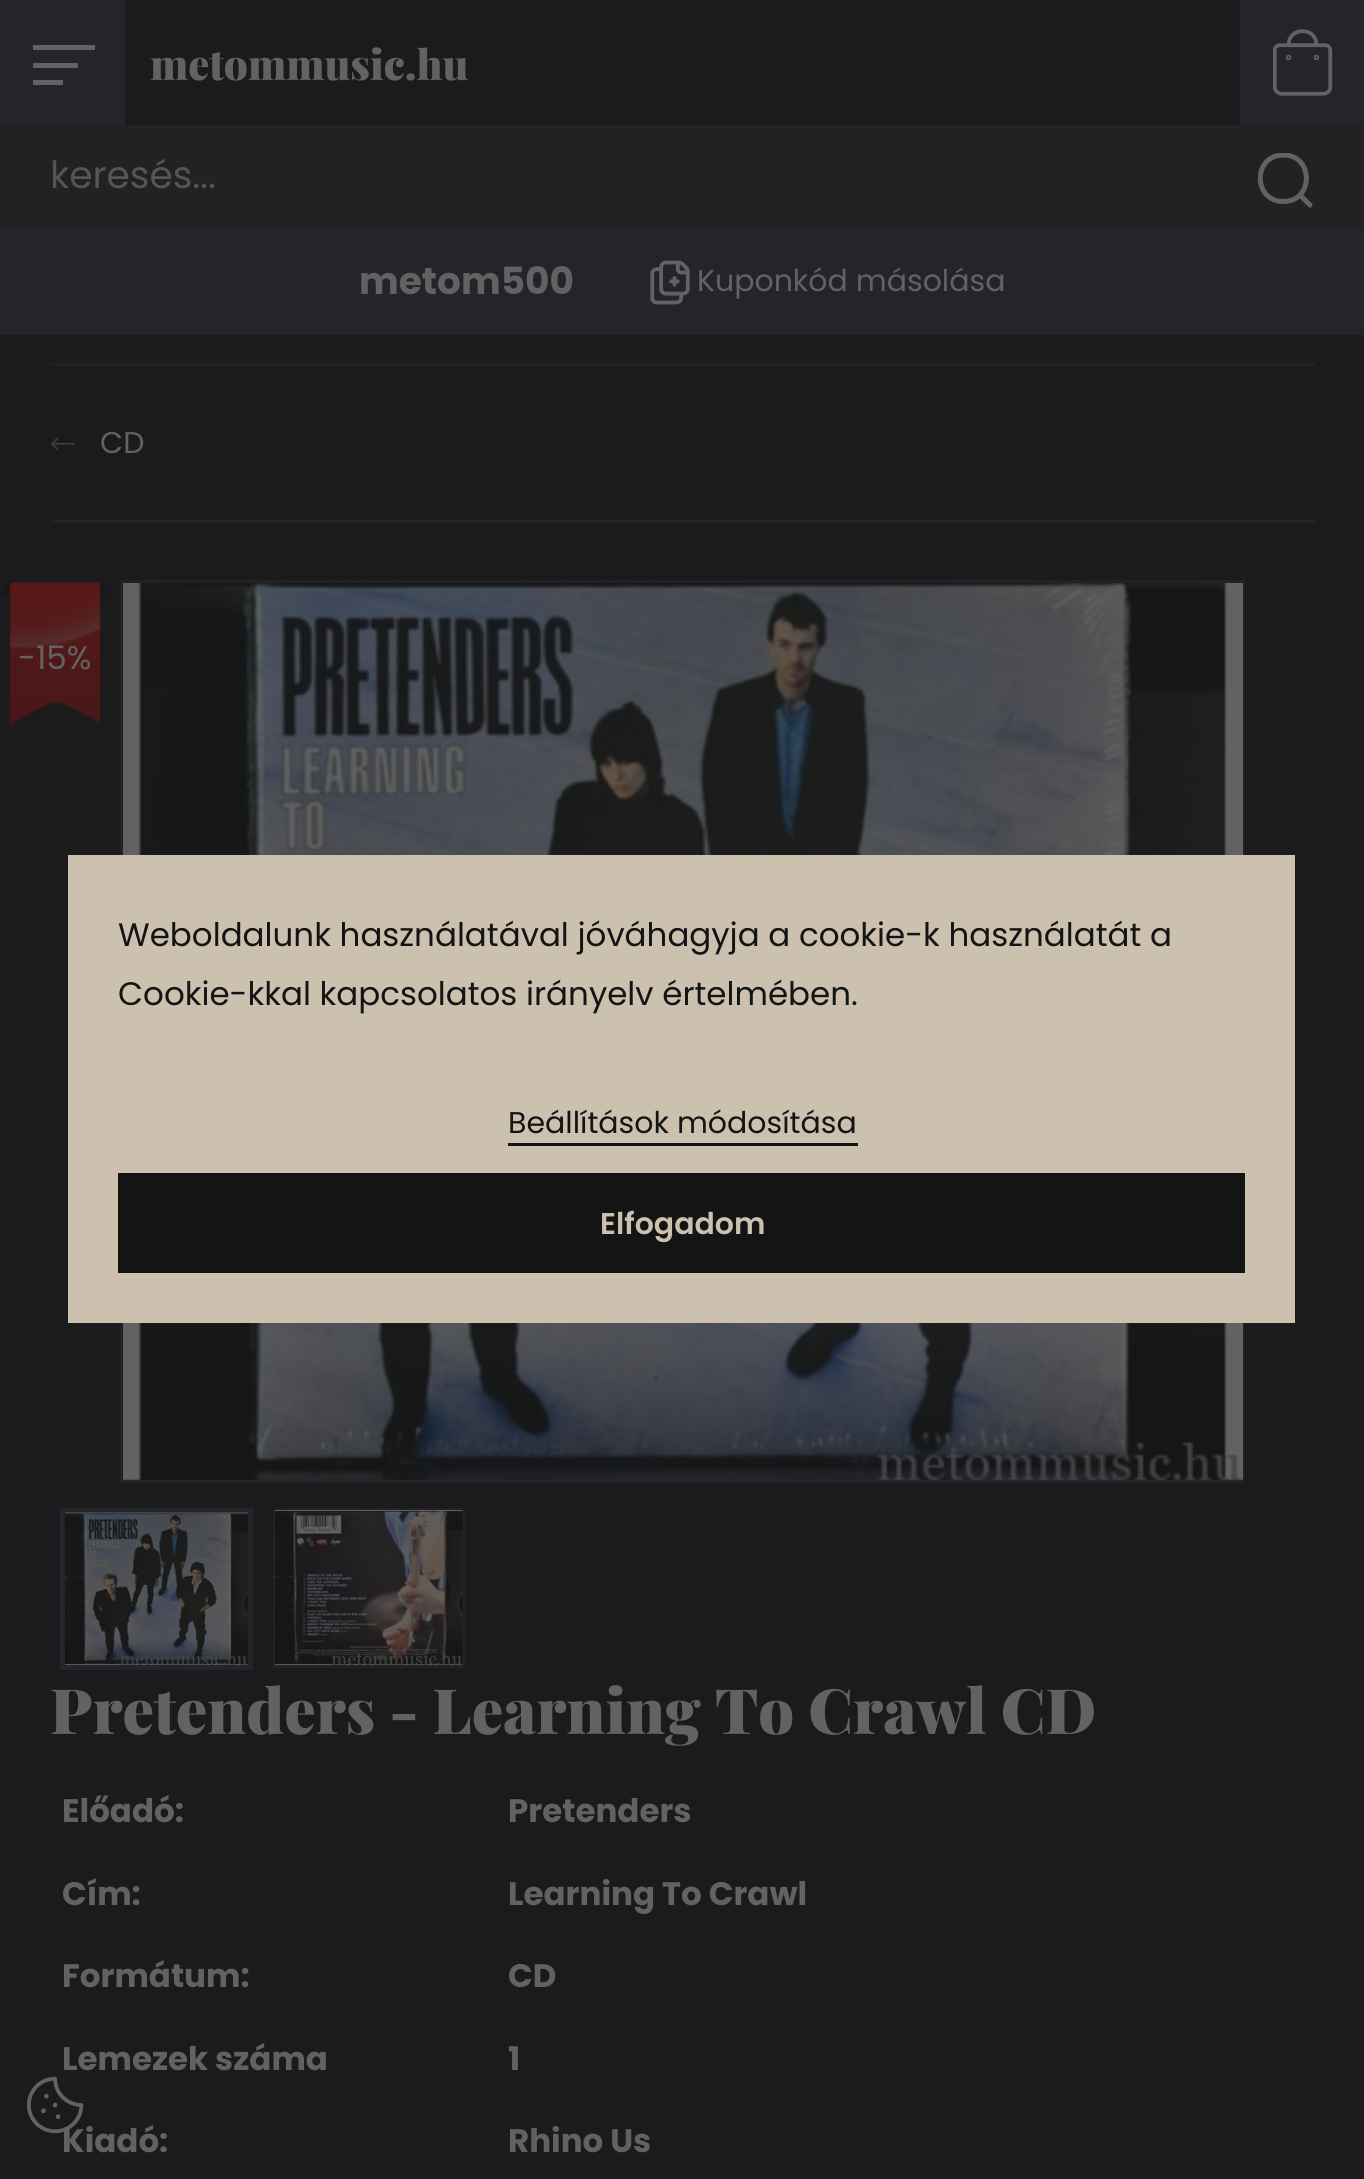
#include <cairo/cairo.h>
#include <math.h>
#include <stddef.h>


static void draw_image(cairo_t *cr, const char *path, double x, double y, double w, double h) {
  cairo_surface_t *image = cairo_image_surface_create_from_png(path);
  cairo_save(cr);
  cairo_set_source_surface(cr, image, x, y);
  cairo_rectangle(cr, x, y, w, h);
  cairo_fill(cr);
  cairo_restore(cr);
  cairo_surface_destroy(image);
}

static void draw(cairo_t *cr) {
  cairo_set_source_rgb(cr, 27 / 255.0, 27 / 255.0, 29 / 255.0);
  cairo_paint(cr);
  cairo_set_source_rgb(cr, 35 / 255.0, 37 / 255.0, 42 / 255.0);
  cairo_rectangle(cr, 0, 0, 125, 125);
  cairo_fill(cr);
  cairo_set_source_rgb(cr, 98 / 255.0, 98 / 255.0, 98 / 255.0);
  cairo_rectangle(cr, 33, 45, 62, 5);
  cairo_fill(cr);
  cairo_rectangle(cr, 33, 63, 45, 5);
  cairo_fill(cr);
  cairo_rectangle(cr, 33, 80, 30, 5);
  cairo_fill(cr);
  cairo_set_source_rgb(cr, 35 / 255.0, 37 / 255.0, 42 / 255.0);
  cairo_rectangle(cr, 1240, 0, 124, 125);
  cairo_fill(cr);
  draw_image(cr, "images/1.png", 1273, 29, 60, 67);
  cairo_set_source_rgb(cr, 34 / 255.0, 34 / 255.0, 36 / 255.0);
  cairo_rectangle(cr, 0, 125, 1364, 103);
  cairo_fill(cr);
  cairo_save(cr);
  cairo_rectangle(cr, 1258, 153, 55, 55);
  cairo_clip(cr);
  cairo_new_path(cr);
  cairo_move_to(cr, 1310, 205);
  cairo_line_to(cr, 1300, 195);
  cairo_move_to(cr, 1283.5, 201.5);
  cairo_curve_to(cr, 1252.5, 201.5, 1252.5, 155, 1283.5, 155);
  cairo_curve_to(cr, 1314, 155, 1314, 201.5, 1283.5, 201.5);
  cairo_close_path(cr);
  cairo_set_source_rgb(cr, 98 / 255.0, 98 / 255.0, 98 / 255.0);
  cairo_set_line_width(cr, 5);
  cairo_set_line_cap(cr, CAIRO_LINE_CAP_ROUND);
  cairo_set_line_join(cr, CAIRO_LINE_JOIN_ROUND);
  cairo_stroke(cr);
  cairo_restore(cr);
  cairo_set_source_rgb(cr, 35 / 255.0, 37 / 255.0, 42 / 255.0);
  cairo_rectangle(cr, 0, 228, 1364, 107);
  cairo_fill(cr);
  draw_image(cr, "images/2.png", 650, 260, 40, 45);
  cairo_set_source_rgb(cr, 34 / 255.0, 34 / 255.0, 36 / 255.0);
  cairo_rectangle(cr, 50, 363, 1265, 3);
  cairo_fill(cr);
  cairo_rectangle(cr, 50, 520, 1265, 3);
  cairo_fill(cr);
  draw_image(cr, "images/3.png", 51, 437, 24, 13);
  cairo_rectangle(cr, 121.5, 581.5, 1122, 900);
  cairo_set_line_width(cr, 3);
  cairo_stroke(cr);
  draw_image(cr, "images/4.png", 2, 581, 106, 146);
  draw_image(cr, "images/5.png", 123, 583, 1120, 897);
  cairo_rectangle(cr, 62.5, 1510.5, 188, 157);
  cairo_set_source_rgb(cr, 35 / 255.0, 37 / 255.0, 42 / 255.0);
  cairo_set_line_width(cr, 5);
  cairo_stroke(cr);
  draw_image(cr, "images/6.png", 65, 1512, 183, 153);
  cairo_rectangle(cr, 274.5, 1509.5, 189, 157);
  cairo_set_source_rgb(cr, 34 / 255.0, 34 / 255.0, 36 / 255.0);
  cairo_set_line_width(cr, 3);
  cairo_stroke(cr);
  draw_image(cr, "images/7.png", 275, 1510, 188, 155);
  cairo_set_source_rgb(cr, 204 / 255.0, 193 / 255.0, 175 / 255.0);
  cairo_rectangle(cr, 68, 855, 1227, 468);
  cairo_fill(cr);
  cairo_set_source_rgb(cr, 20 / 255.0, 20 / 255.0, 20 / 255.0);
  cairo_rectangle(cr, 508, 1143, 350, 3);
  cairo_fill(cr);
  cairo_rectangle(cr, 118, 1173, 1127, 100);
  cairo_fill(cr);
  cairo_select_font_face(cr, "Playfair Display Black", CAIRO_FONT_SLANT_NORMAL, CAIRO_FONT_WEIGHT_NORMAL);
  cairo_set_font_size(cr, 41.75);
  cairo_set_source_rgb(cr, 98 / 255.0, 98 / 255.0, 98 / 255.0);
  cairo_move_to(cr, 150, 80);
  cairo_show_text(cr, "metommusic.hu");
  cairo_select_font_face(cr, "Poppins", CAIRO_FONT_SLANT_NORMAL, CAIRO_FONT_WEIGHT_NORMAL);
  cairo_set_font_size(cr, 37.5);
  cairo_set_source_rgb(cr, 85 / 255.0, 85 / 255.0, 86 / 255.0);
  cairo_move_to(cr, 50, 188);
  cairo_show_text(cr, "keresés...");
  cairo_select_font_face(cr, "Poppins", CAIRO_FONT_SLANT_NORMAL, CAIRO_FONT_WEIGHT_BOLD);
  cairo_set_source_rgb(cr, 98 / 255.0, 98 / 255.0, 98 / 255.0);
  cairo_move_to(cr, 359, 294);
  cairo_show_text(cr, "metom500");
  cairo_select_font_face(cr, "Poppins", CAIRO_FONT_SLANT_NORMAL, CAIRO_FONT_WEIGHT_NORMAL);
  cairo_set_font_size(cr, 30);
  cairo_move_to(cr, 697, 291);
  cairo_show_text(cr, "Kuponkód másolása");
  cairo_move_to(cr, 100, 453);
  cairo_show_text(cr, "CD");
  cairo_set_font_size(cr, 32.5);
  cairo_move_to(cr, 18, 669);
  cairo_show_text(cr, "-15%");
  cairo_select_font_face(cr, "Playfair Display Black", CAIRO_FONT_SLANT_NORMAL, CAIRO_FONT_WEIGHT_NORMAL);
  cairo_set_font_size(cr, 62.5);
  cairo_move_to(cr, 50, 1734);
  cairo_show_text(cr, "Pretenders - Learning To Crawl CD");
  cairo_select_font_face(cr, "Poppins", CAIRO_FONT_SLANT_NORMAL, CAIRO_FONT_WEIGHT_BOLD);
  cairo_set_font_size(cr, 32.5);
  cairo_move_to(cr, 62, 1822);
  cairo_show_text(cr, "Előadó:");
  cairo_move_to(cr, 508, 1822);
  cairo_show_text(cr, "Pretenders");
  cairo_move_to(cr, 62, 1905);
  cairo_show_text(cr, "Cím:");
  cairo_move_to(cr, 508, 1905);
  cairo_show_text(cr, "Learning To Crawl");
  cairo_move_to(cr, 62, 1987);
  cairo_show_text(cr, "Formátum:");
  cairo_move_to(cr, 508, 1987);
  cairo_show_text(cr, "CD");
  cairo_move_to(cr, 62, 2070);
  cairo_show_text(cr, "Lemezek száma");
  cairo_move_to(cr, 508, 2070);
  cairo_show_text(cr, "1");
  cairo_move_to(cr, 62, 2152);
  cairo_show_text(cr, "Kiadó:");
  cairo_move_to(cr, 508, 2152);
  cairo_show_text(cr, "Rhino Us");
  cairo_select_font_face(cr, "Poppins", CAIRO_FONT_SLANT_NORMAL, CAIRO_FONT_WEIGHT_NORMAL);
  cairo_set_source_rgb(cr, 20 / 255.0, 20 / 255.0, 20 / 255.0);
  cairo_move_to(cr, 118, 946);
  cairo_show_text(cr, "Weboldalunk használatával jóváhagyja a cookie-k használatát a");
  cairo_move_to(cr, 118, 1005);
  cairo_show_text(cr, "Cookie-kkal kapcsolatos irányelv értelmében.");
  cairo_set_font_size(cr, 30);
  cairo_move_to(cr, 508, 1133);
  cairo_show_text(cr, "Beállítások módosítása");
  cairo_select_font_face(cr, "Poppins SemiBold", CAIRO_FONT_SLANT_NORMAL, CAIRO_FONT_WEIGHT_NORMAL);
  cairo_set_source_rgb(cr, 204 / 255.0, 193 / 255.0, 175 / 255.0);
  cairo_move_to(cr, 600, 1234);
  cairo_show_text(cr, "Elfogadom");
  draw_image(cr, "images/8.png", 27, 2076, 57, 58);
}

int main(void) {
  cairo_surface_t *surface = cairo_image_surface_create(CAIRO_FORMAT_RGB24, 1364, 2179);
  cairo_t *cr = cairo_create(surface);
  cairo_font_options_t *options = cairo_font_options_create();
  cairo_font_options_set_hint_metrics(options, CAIRO_HINT_METRICS_OFF);
  cairo_font_options_set_hint_style(options, CAIRO_HINT_STYLE_NONE);
  cairo_set_font_options(cr, options);
  cairo_set_miter_limit(cr, 4);
  draw(cr);
  cairo_surface_write_to_png(surface, "out.png");
  cairo_font_options_destroy(options);
  cairo_destroy(cr);
  cairo_surface_destroy(surface);
  return 0;
}
